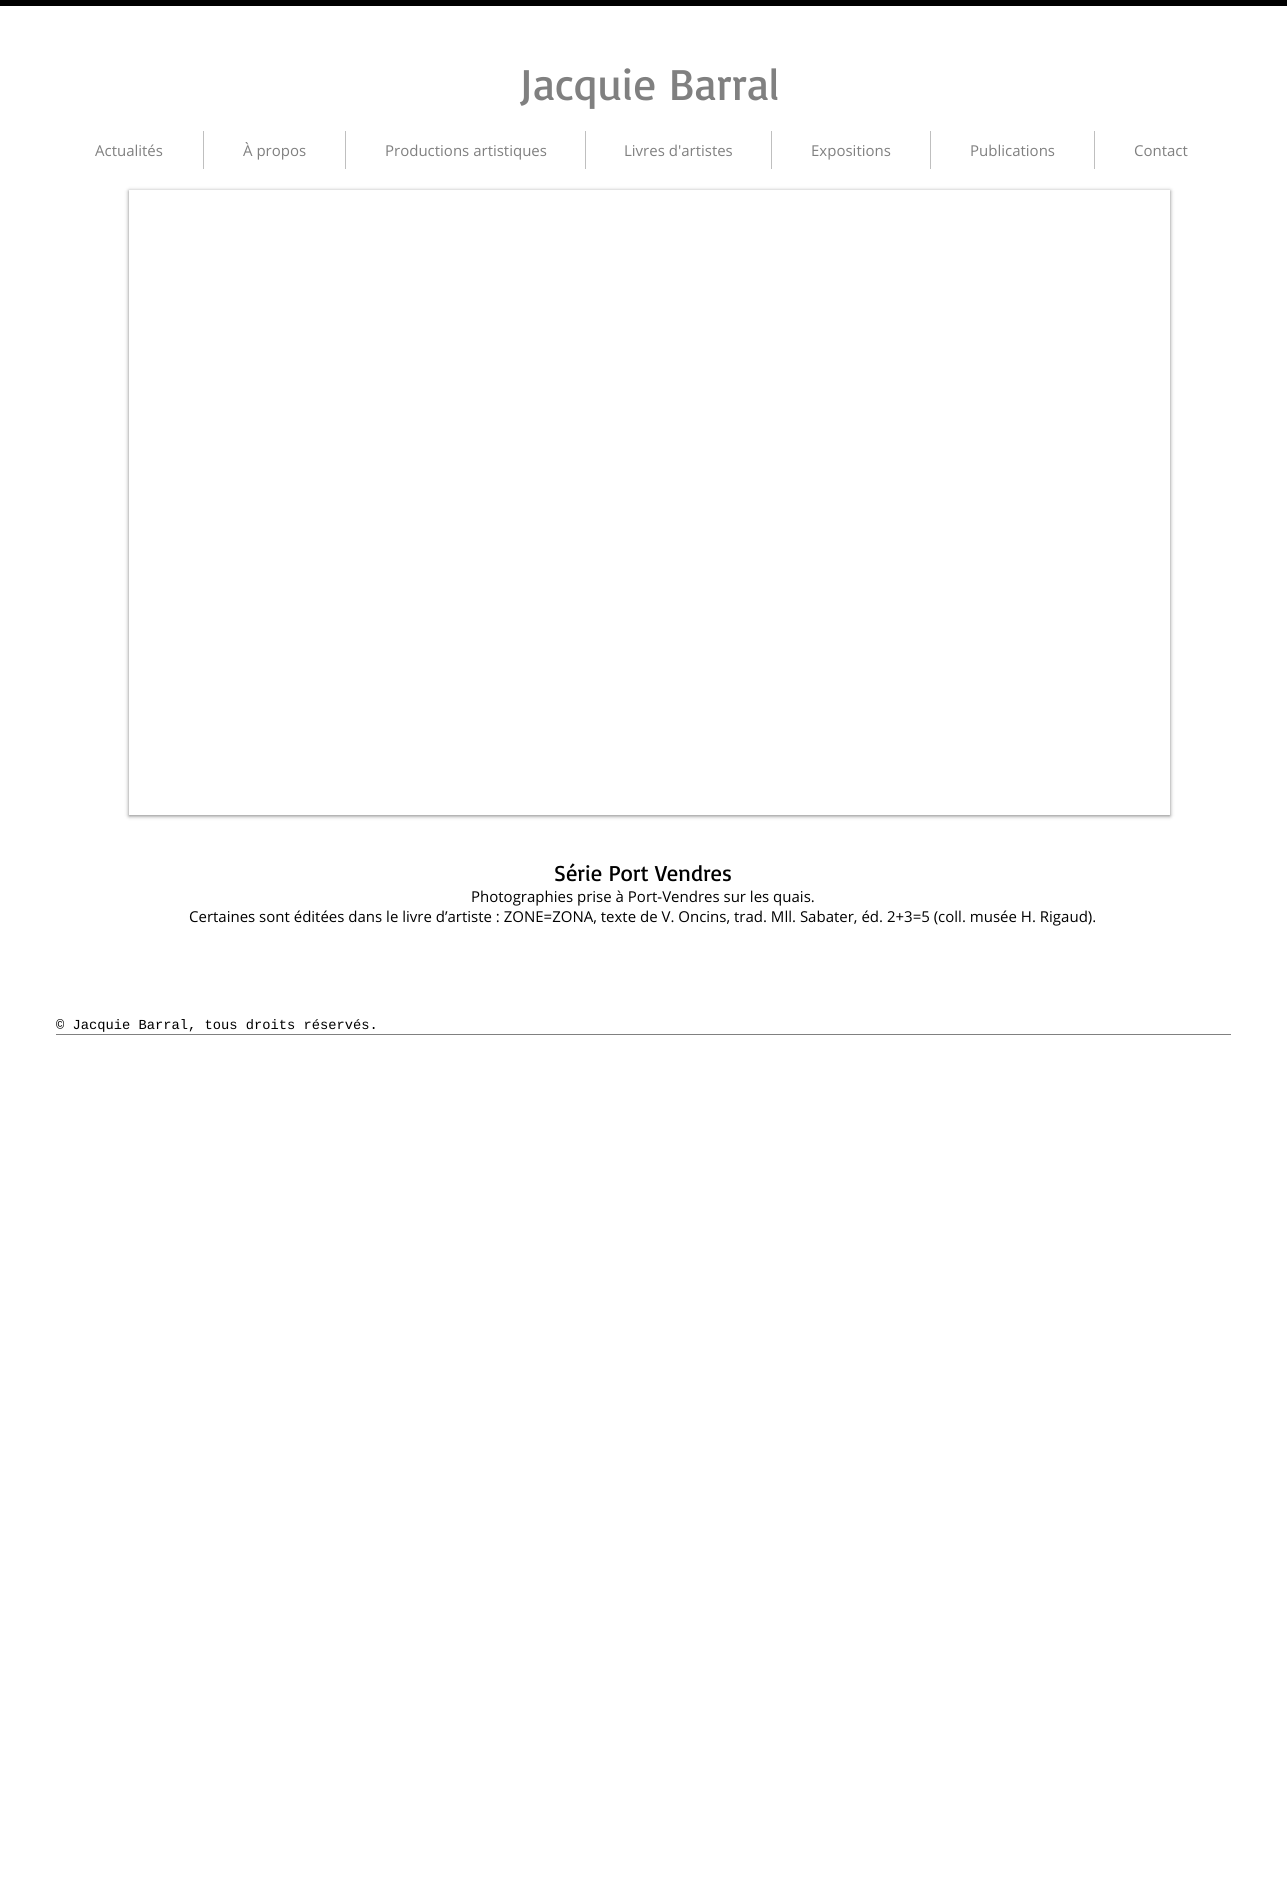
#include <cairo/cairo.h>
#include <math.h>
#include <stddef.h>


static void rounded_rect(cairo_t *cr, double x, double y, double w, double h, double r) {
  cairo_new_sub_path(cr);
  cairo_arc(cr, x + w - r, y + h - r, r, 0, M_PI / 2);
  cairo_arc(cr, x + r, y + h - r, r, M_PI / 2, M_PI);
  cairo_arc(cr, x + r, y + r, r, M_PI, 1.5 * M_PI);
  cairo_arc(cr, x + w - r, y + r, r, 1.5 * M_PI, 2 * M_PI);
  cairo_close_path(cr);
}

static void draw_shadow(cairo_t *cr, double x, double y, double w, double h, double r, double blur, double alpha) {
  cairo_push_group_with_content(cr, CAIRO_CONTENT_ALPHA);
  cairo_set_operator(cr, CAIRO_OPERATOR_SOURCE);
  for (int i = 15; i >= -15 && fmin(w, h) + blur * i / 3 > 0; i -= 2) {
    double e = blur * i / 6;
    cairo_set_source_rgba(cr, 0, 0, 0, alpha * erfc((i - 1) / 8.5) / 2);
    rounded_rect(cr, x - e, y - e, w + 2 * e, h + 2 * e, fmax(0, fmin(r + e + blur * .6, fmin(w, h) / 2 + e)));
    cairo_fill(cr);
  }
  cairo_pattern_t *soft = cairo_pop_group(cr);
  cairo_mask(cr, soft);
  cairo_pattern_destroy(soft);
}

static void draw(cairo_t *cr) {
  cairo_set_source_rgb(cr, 1, 1, 1);
  cairo_paint(cr);
  cairo_set_source_rgb(cr, 0, 0, 0);
  cairo_rectangle(cr, 0, 0, 1287, 6);
  cairo_fill(cr);
  cairo_set_source_rgb(cr, 191 / 255.0, 191 / 255.0, 191 / 255.0);
  cairo_rectangle(cr, 203, 131, 1, 38);
  cairo_fill(cr);
  cairo_rectangle(cr, 345, 131, 1, 38);
  cairo_fill(cr);
  cairo_rectangle(cr, 585, 131, 1, 38);
  cairo_fill(cr);
  cairo_rectangle(cr, 771, 131, 1, 38);
  cairo_fill(cr);
  cairo_rectangle(cr, 930, 131, 1, 38);
  cairo_fill(cr);
  cairo_rectangle(cr, 1094, 131, 1, 38);
  cairo_fill(cr);
  cairo_save(cr);
  cairo_set_fill_rule(cr, CAIRO_FILL_RULE_EVEN_ODD);
  cairo_new_path(cr);
  cairo_move_to(cr, 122, 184);
  cairo_line_to(cr, 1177, 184);
  cairo_line_to(cr, 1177, 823);
  cairo_line_to(cr, 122, 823);
  cairo_close_path(cr);
  cairo_move_to(cr, 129, 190);
  cairo_line_to(cr, 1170, 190);
  cairo_line_to(cr, 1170, 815);
  cairo_line_to(cr, 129, 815);
  cairo_close_path(cr);
  cairo_clip(cr);
  cairo_set_source_rgb(cr, 0, 0, 0);
  draw_shadow(cr, 129, 191, 1041, 625, 0, 2, 0.5);
  cairo_restore(cr);
  cairo_set_source_rgb(cr, 128 / 255.0, 128 / 255.0, 128 / 255.0);
  cairo_rectangle(cr, 56, 1034, 1175, 1);
  cairo_fill(cr);
  cairo_select_font_face(cr, "Basic", CAIRO_FONT_SLANT_NORMAL, CAIRO_FONT_WEIGHT_NORMAL);
  cairo_set_font_size(cr, 45);
  cairo_move_to(cr, 519, 100);
  cairo_show_text(cr, "Jacquie Barral");
  cairo_select_font_face(cr, "Open Sans", CAIRO_FONT_SLANT_NORMAL, CAIRO_FONT_WEIGHT_NORMAL);
  cairo_set_font_size(cr, 15);
  cairo_move_to(cr, 95, 156);
  cairo_show_text(cr, "Actualités");
  cairo_move_to(cr, 243, 156);
  cairo_show_text(cr, "À propos");
  cairo_move_to(cr, 385, 156);
  cairo_show_text(cr, "Productions artistiques");
  cairo_move_to(cr, 624, 156);
  cairo_show_text(cr, "Livres d'artistes");
  cairo_move_to(cr, 811, 156);
  cairo_show_text(cr, "Expositions");
  cairo_move_to(cr, 970, 156);
  cairo_show_text(cr, "Publications");
  cairo_move_to(cr, 1134, 156);
  cairo_show_text(cr, "Contact");
  cairo_select_font_face(cr, "Basic", CAIRO_FONT_SLANT_NORMAL, CAIRO_FONT_WEIGHT_NORMAL);
  cairo_set_font_size(cr, 22.5);
  cairo_set_source_rgb(cr, 0, 0, 0);
  cairo_move_to(cr, 554, 881);
  cairo_show_text(cr, "Série Port Vendres");
  cairo_select_font_face(cr, "Open Sans", CAIRO_FONT_SLANT_NORMAL, CAIRO_FONT_WEIGHT_NORMAL);
  cairo_set_font_size(cr, 15);
  cairo_move_to(cr, 471, 902);
  cairo_show_text(cr, "Photographies prise à Port-Vendres sur les quais.");
  cairo_move_to(cr, 189, 922);
  cairo_show_text(cr, "Certaines sont éditées dans le livre d’artiste : ZONE=ZONA, texte de V. Oncins, trad. Mll. Sabater, éd. 2+3=5 (coll. musée H. Rigaud).");
  cairo_select_font_face(cr, "Liberation Mono", CAIRO_FONT_SLANT_NORMAL, CAIRO_FONT_WEIGHT_NORMAL);
  cairo_set_font_size(cr, 13.75);
  cairo_move_to(cr, 56, 1029);
  cairo_show_text(cr, "© Jacquie Barral, tous droits réservés.");
}

int main(void) {
  cairo_surface_t *surface = cairo_image_surface_create(CAIRO_FORMAT_RGB24, 1287, 1893);
  cairo_t *cr = cairo_create(surface);
  cairo_font_options_t *options = cairo_font_options_create();
  cairo_font_options_set_hint_metrics(options, CAIRO_HINT_METRICS_OFF);
  cairo_font_options_set_hint_style(options, CAIRO_HINT_STYLE_NONE);
  cairo_set_font_options(cr, options);
  cairo_set_miter_limit(cr, 4);
  draw(cr);
  cairo_surface_write_to_png(surface, "out.png");
  cairo_font_options_destroy(options);
  cairo_destroy(cr);
  cairo_surface_destroy(surface);
  return 0;
}
